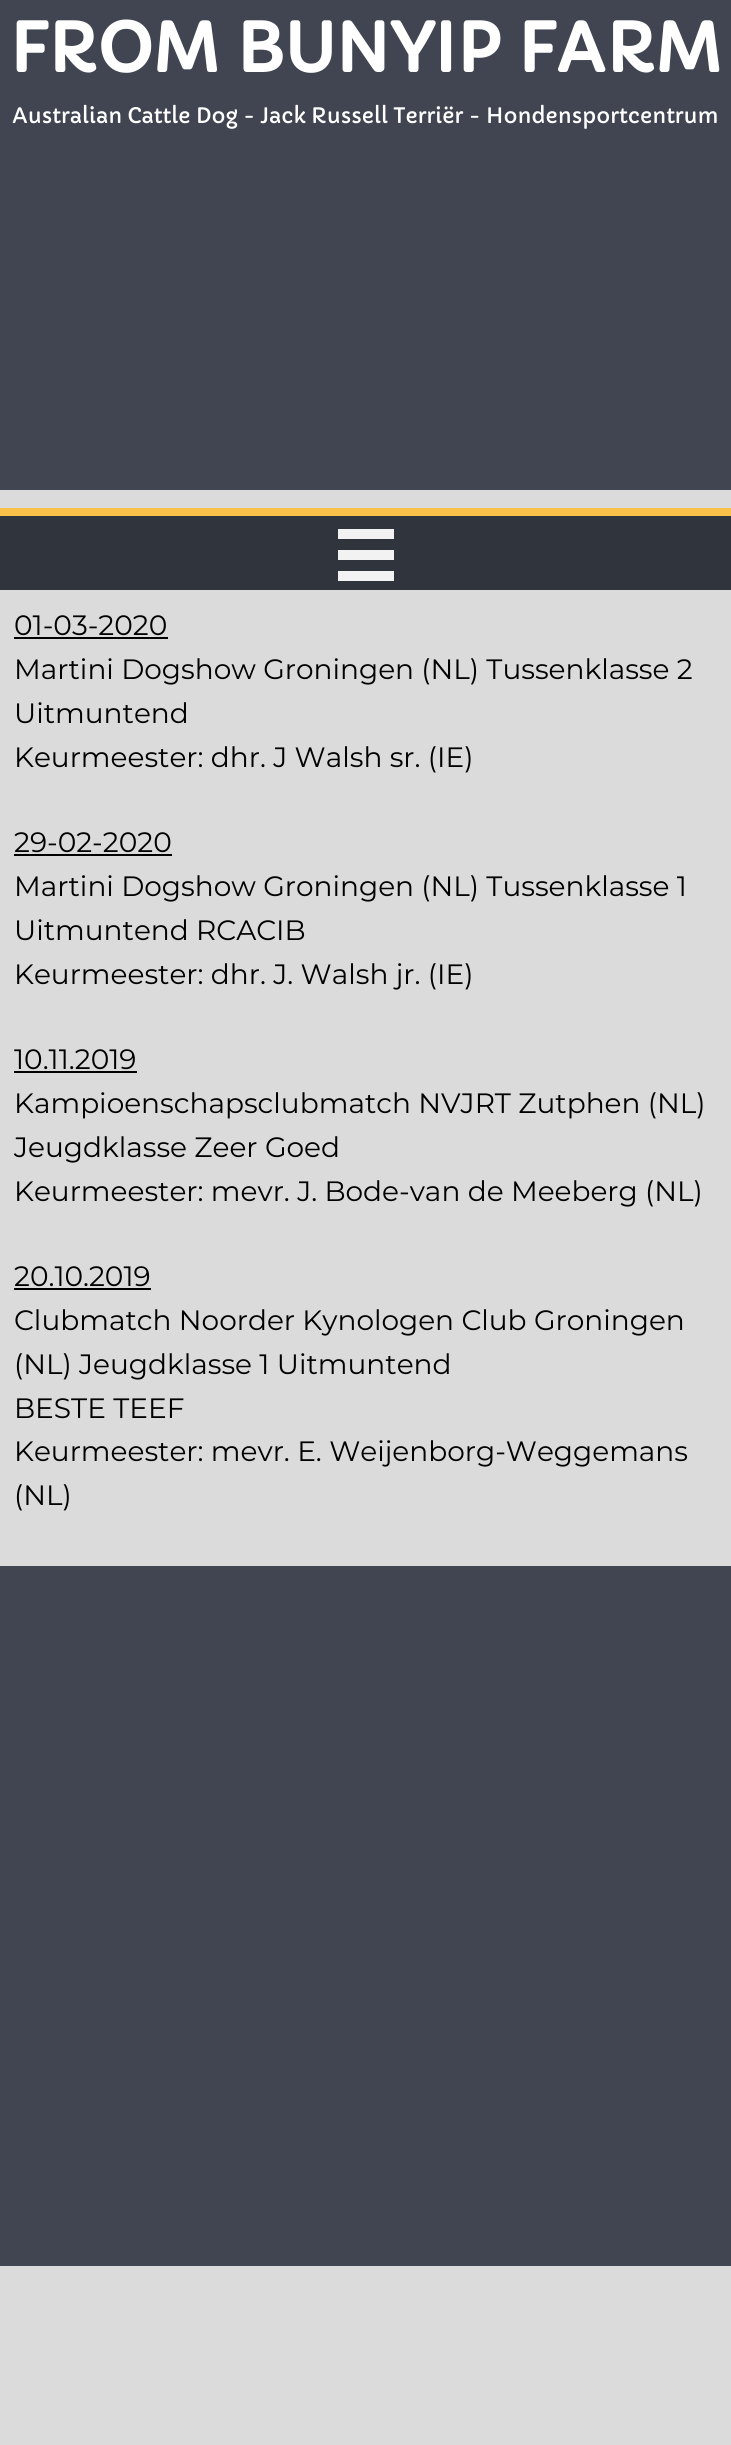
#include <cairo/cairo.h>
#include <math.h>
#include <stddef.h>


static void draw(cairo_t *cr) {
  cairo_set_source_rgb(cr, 219 / 255.0, 219 / 255.0, 219 / 255.0);
  cairo_paint(cr);
  cairo_set_source_rgb(cr, 64 / 255.0, 69 / 255.0, 81 / 255.0);
  cairo_rectangle(cr, 0, 0, 731, 490);
  cairo_fill(cr);
  cairo_set_source_rgb(cr, 48 / 255.0, 52 / 255.0, 61 / 255.0);
  cairo_rectangle(cr, 0, 516, 731, 74);
  cairo_fill(cr);
  cairo_set_source_rgb(cr, 249 / 255.0, 193 / 255.0, 74 / 255.0);
  cairo_rectangle(cr, 0, 508, 731, 8);
  cairo_fill(cr);
  cairo_set_source_rgb(cr, 242 / 255.0, 242 / 255.0, 242 / 255.0);
  cairo_rectangle(cr, 338, 550, 56, 10);
  cairo_fill(cr);
  cairo_rectangle(cr, 338, 529, 56, 10);
  cairo_fill(cr);
  cairo_rectangle(cr, 338, 571, 56, 10);
  cairo_fill(cr);
  cairo_set_source_rgb(cr, 0, 0, 0);
  cairo_rectangle(cr, 14, 637, 154, 2);
  cairo_fill(cr);
  cairo_rectangle(cr, 14, 854, 158, 2);
  cairo_fill(cr);
  cairo_rectangle(cr, 14, 1071, 123, 2);
  cairo_fill(cr);
  cairo_rectangle(cr, 14, 1288, 137, 2);
  cairo_fill(cr);
  cairo_set_source_rgb(cr, 64 / 255.0, 69 / 255.0, 81 / 255.0);
  cairo_rectangle(cr, 0, 1566, 731, 700);
  cairo_fill(cr);
  cairo_select_font_face(cr, "Capriola", CAIRO_FONT_SLANT_NORMAL, CAIRO_FONT_WEIGHT_BOLD);
  cairo_set_font_size(cr, 66.5);
  cairo_set_source_rgb(cr, 1, 1, 1);
  cairo_move_to(cr, 9, 72);
  cairo_show_text(cr, "FROM BUNYIP FARM");
  cairo_select_font_face(cr, "Capriola", CAIRO_FONT_SLANT_NORMAL, CAIRO_FONT_WEIGHT_NORMAL);
  cairo_set_font_size(cr, 21);
  cairo_move_to(cr, 12, 123);
  cairo_show_text(cr, "Australian Cattle Dog - Jack Russell Terriër - Hondensportcentrum");
  cairo_select_font_face(cr, "Montserrat", CAIRO_FONT_SLANT_NORMAL, CAIRO_FONT_WEIGHT_NORMAL);
  cairo_set_font_size(cr, 28);
  cairo_set_source_rgb(cr, 0, 0, 0);
  cairo_move_to(cr, 14, 635);
  cairo_show_text(cr, "01-03-2020");
  cairo_move_to(cr, 14, 679);
  cairo_show_text(cr, "Martini Dogshow Groningen (NL) Tussenklasse 2");
  cairo_move_to(cr, 14, 723);
  cairo_show_text(cr, "Uitmuntend");
  cairo_move_to(cr, 14, 767);
  cairo_show_text(cr, "Keurmeester: dhr. J Walsh sr. (IE)");
  cairo_move_to(cr, 14, 852);
  cairo_show_text(cr, "29-02-2020");
  cairo_move_to(cr, 14, 896);
  cairo_show_text(cr, "Martini Dogshow Groningen (NL) Tussenklasse 1");
  cairo_move_to(cr, 14, 940);
  cairo_show_text(cr, "Uitmuntend RCACIB");
  cairo_move_to(cr, 14, 984);
  cairo_show_text(cr, "Keurmeester: dhr. J. Walsh jr. (IE)");
  cairo_move_to(cr, 14, 1069);
  cairo_show_text(cr, "10.11.2019");
  cairo_move_to(cr, 14, 1113);
  cairo_show_text(cr, "Kampioenschapsclubmatch NVJRT Zutphen (NL)");
  cairo_move_to(cr, 14, 1157);
  cairo_show_text(cr, "Jeugdklasse Zeer Goed");
  cairo_move_to(cr, 14, 1201);
  cairo_show_text(cr, "Keurmeester: mevr. J. Bode-van de Meeberg (NL)");
  cairo_move_to(cr, 14, 1286);
  cairo_show_text(cr, "20.10.2019");
  cairo_move_to(cr, 14, 1330);
  cairo_show_text(cr, "Clubmatch Noorder Kynologen Club Groningen");
  cairo_move_to(cr, 14, 1374);
  cairo_show_text(cr, "(NL) Jeugdklasse 1 Uitmuntend");
  cairo_move_to(cr, 14, 1418);
  cairo_show_text(cr, "BESTE TEEF");
  cairo_move_to(cr, 14, 1461);
  cairo_show_text(cr, "Keurmeester: mevr. E. Weijenborg-Weggemans");
  cairo_move_to(cr, 14, 1505);
  cairo_show_text(cr, "(NL)");
}

int main(void) {
  cairo_surface_t *surface = cairo_image_surface_create(CAIRO_FORMAT_RGB24, 731, 2445);
  cairo_t *cr = cairo_create(surface);
  cairo_font_options_t *options = cairo_font_options_create();
  cairo_font_options_set_hint_metrics(options, CAIRO_HINT_METRICS_OFF);
  cairo_font_options_set_hint_style(options, CAIRO_HINT_STYLE_NONE);
  cairo_set_font_options(cr, options);
  cairo_set_miter_limit(cr, 4);
  draw(cr);
  cairo_surface_write_to_png(surface, "out.png");
  cairo_font_options_destroy(options);
  cairo_destroy(cr);
  cairo_surface_destroy(surface);
  return 0;
}
